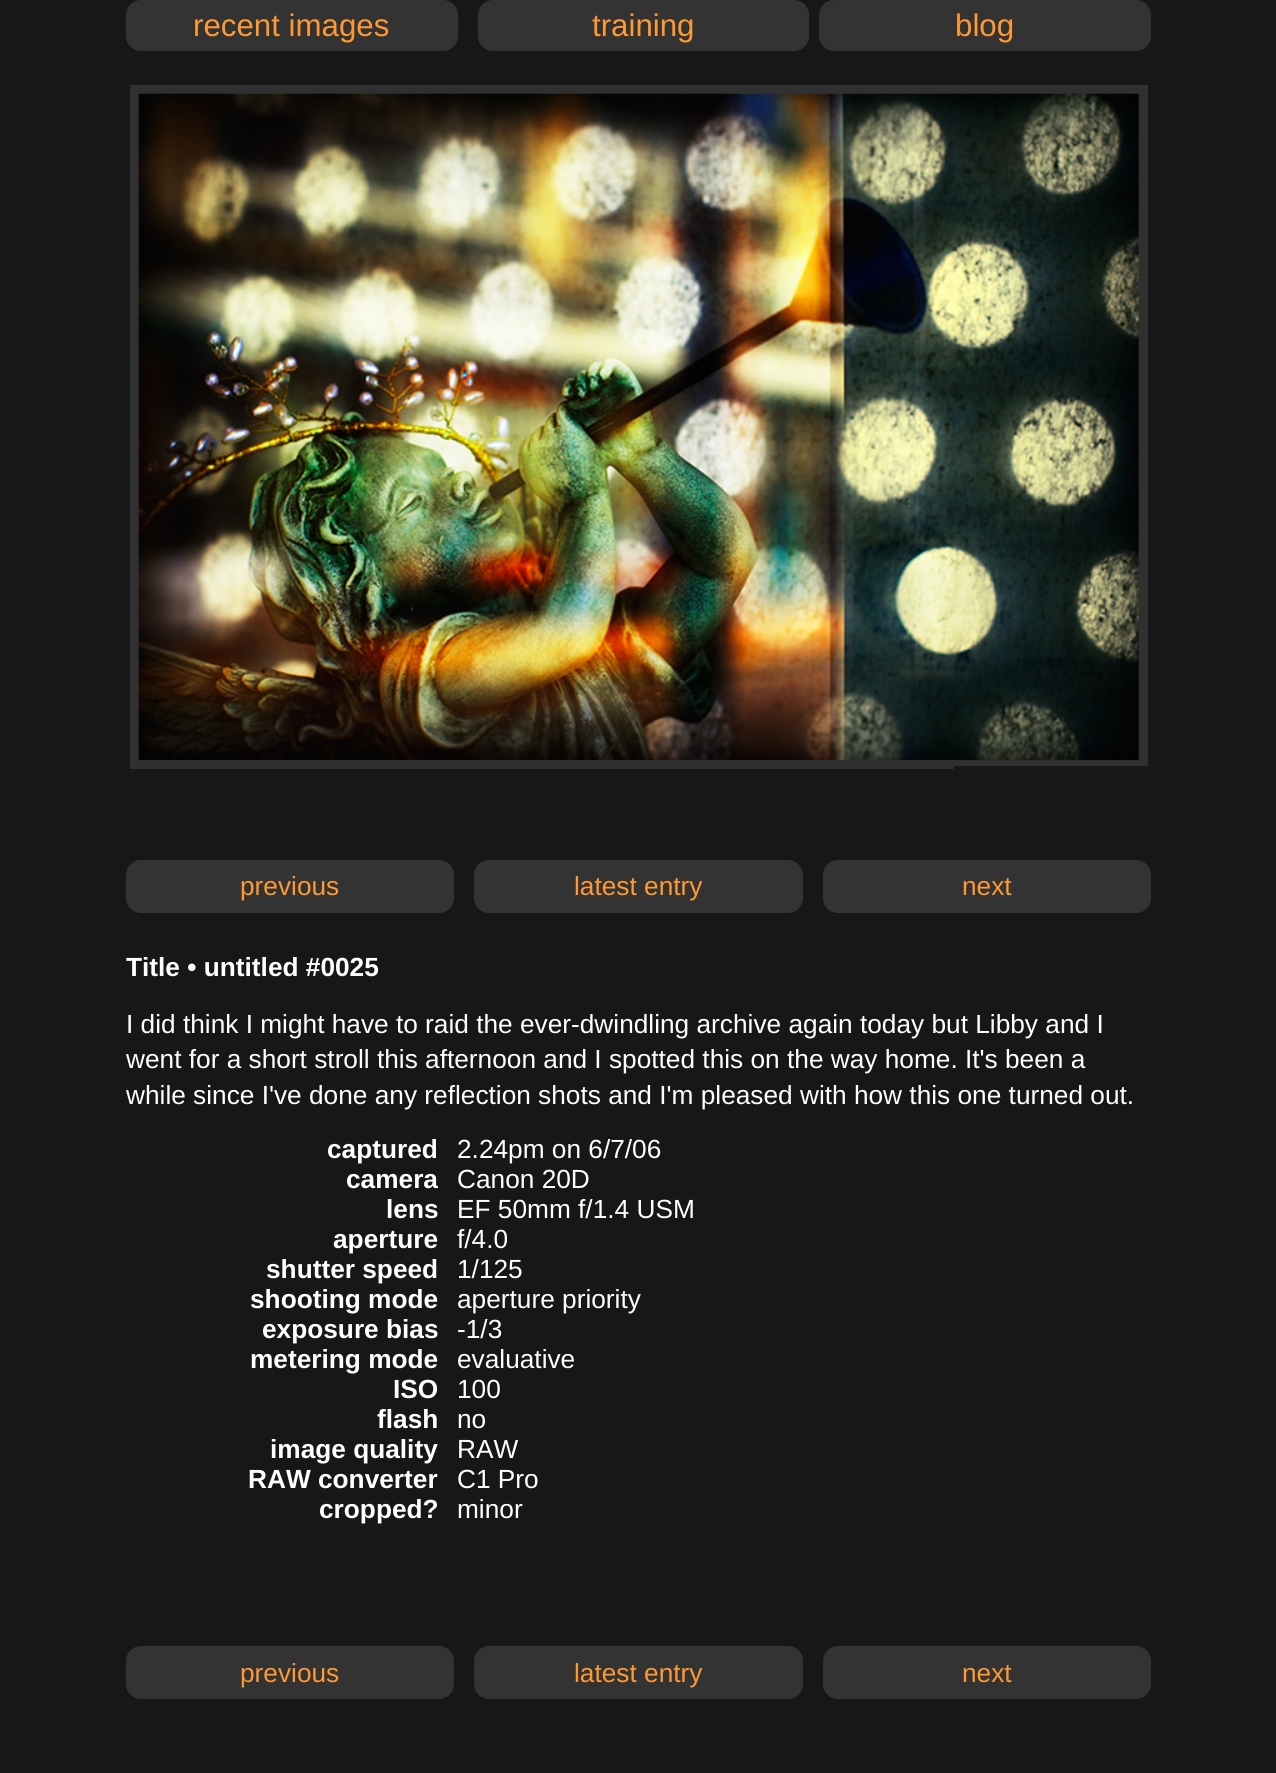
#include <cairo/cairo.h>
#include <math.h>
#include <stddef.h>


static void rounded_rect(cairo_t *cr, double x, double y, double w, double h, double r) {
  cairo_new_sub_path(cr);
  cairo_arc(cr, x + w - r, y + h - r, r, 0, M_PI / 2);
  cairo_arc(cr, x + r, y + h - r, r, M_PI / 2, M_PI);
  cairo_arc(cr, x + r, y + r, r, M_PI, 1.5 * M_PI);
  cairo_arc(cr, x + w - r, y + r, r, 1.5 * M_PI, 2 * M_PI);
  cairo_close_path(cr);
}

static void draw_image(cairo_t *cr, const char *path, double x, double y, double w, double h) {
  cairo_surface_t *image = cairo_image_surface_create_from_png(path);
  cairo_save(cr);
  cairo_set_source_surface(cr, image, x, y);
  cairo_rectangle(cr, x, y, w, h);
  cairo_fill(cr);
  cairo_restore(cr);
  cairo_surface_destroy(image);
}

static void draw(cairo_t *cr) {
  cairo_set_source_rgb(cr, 23 / 255.0, 23 / 255.0, 23 / 255.0);
  cairo_paint(cr);
  cairo_set_source_rgb(cr, 51 / 255.0, 51 / 255.0, 51 / 255.0);
  rounded_rect(cr, 126, 0, 332, 51, 15);
  cairo_fill(cr);
  rounded_rect(cr, 478, 0, 331, 51, 15);
  cairo_fill(cr);
  rounded_rect(cr, 819, 0, 332, 51, 15);
  cairo_fill(cr);
  cairo_set_source_rgb(cr, 48 / 255.0, 48 / 255.0, 48 / 255.0);
  cairo_rectangle(cr, 130, 85, 1018, 684);
  cairo_fill(cr);
  draw_image(cr, "images/1.png", 138, 93, 1001, 667);
  cairo_set_source_rgb(cr, 23 / 255.0, 23 / 255.0, 23 / 255.0);
  cairo_new_path(cr);
  cairo_move_to(cr, 954, 766);
  cairo_line_to(cr, 1148, 766);
  cairo_line_to(cr, 1148, 818);
  cairo_curve_to(cr, 1148, 822.5, 1144.5, 826, 1140, 826);
  cairo_line_to(cr, 962, 826);
  cairo_curve_to(cr, 957.5, 826, 954, 822.5, 954, 818);
  cairo_close_path(cr);
  cairo_fill(cr);
  cairo_set_source_rgb(cr, 51 / 255.0, 51 / 255.0, 51 / 255.0);
  rounded_rect(cr, 126, 860, 328, 53, 15);
  cairo_fill(cr);
  rounded_rect(cr, 474, 860, 329, 53, 15);
  cairo_fill(cr);
  rounded_rect(cr, 823, 860, 328, 53, 15);
  cairo_fill(cr);
  rounded_rect(cr, 126, 1646, 328, 53, 15);
  cairo_fill(cr);
  rounded_rect(cr, 474, 1646, 329, 53, 15);
  cairo_fill(cr);
  rounded_rect(cr, 823, 1646, 328, 53, 15);
  cairo_fill(cr);
  cairo_select_font_face(cr, "Liberation Sans", CAIRO_FONT_SLANT_NORMAL, CAIRO_FONT_WEIGHT_NORMAL);
  cairo_set_font_size(cr, 31.25);
  cairo_set_source_rgb(cr, 1, 153 / 255.0, 51 / 255.0);
  cairo_move_to(cr, 193, 36);
  cairo_show_text(cr, "recent images");
  cairo_move_to(cr, 592, 36);
  cairo_show_text(cr, "training");
  cairo_move_to(cr, 955, 36);
  cairo_show_text(cr, "blog");
  cairo_set_font_size(cr, 26.25);
  cairo_move_to(cr, 240, 895);
  cairo_show_text(cr, "previous");
  cairo_move_to(cr, 574, 895);
  cairo_show_text(cr, "latest entry");
  cairo_move_to(cr, 962, 895);
  cairo_show_text(cr, "next");
  cairo_select_font_face(cr, "Liberation Sans", CAIRO_FONT_SLANT_NORMAL, CAIRO_FONT_WEIGHT_BOLD);
  cairo_set_source_rgb(cr, 1, 1, 1);
  cairo_move_to(cr, 126, 976);
  cairo_show_text(cr, "Title • untitled #0025");
  cairo_select_font_face(cr, "Liberation Sans", CAIRO_FONT_SLANT_NORMAL, CAIRO_FONT_WEIGHT_NORMAL);
  cairo_move_to(cr, 126, 1033);
  cairo_show_text(cr, "I did think I might have to raid the ever-dwindling archive again today but Libby and I");
  cairo_move_to(cr, 126, 1068);
  cairo_show_text(cr, "went for a short stroll this afternoon and I spotted this on the way home. It's been a");
  cairo_move_to(cr, 126, 1104);
  cairo_show_text(cr, "while since I've done any reflection shots and I'm pleased with how this one turned out.");
  cairo_select_font_face(cr, "Liberation Sans", CAIRO_FONT_SLANT_NORMAL, CAIRO_FONT_WEIGHT_BOLD);
  cairo_move_to(cr, 327, 1158);
  cairo_show_text(cr, "captured");
  cairo_move_to(cr, 346, 1188);
  cairo_show_text(cr, "camera");
  cairo_move_to(cr, 386, 1218);
  cairo_show_text(cr, "lens");
  cairo_move_to(cr, 333, 1248);
  cairo_show_text(cr, "aperture");
  cairo_move_to(cr, 266, 1278);
  cairo_show_text(cr, "shutter speed");
  cairo_move_to(cr, 250, 1308);
  cairo_show_text(cr, "shooting mode");
  cairo_move_to(cr, 262, 1338);
  cairo_show_text(cr, "exposure bias");
  cairo_move_to(cr, 250, 1368);
  cairo_show_text(cr, "metering mode");
  cairo_move_to(cr, 393, 1398);
  cairo_show_text(cr, "ISO");
  cairo_move_to(cr, 377, 1428);
  cairo_show_text(cr, "flash");
  cairo_move_to(cr, 270, 1458);
  cairo_show_text(cr, "image quality");
  cairo_move_to(cr, 248, 1488);
  cairo_show_text(cr, "RAW converter");
  cairo_move_to(cr, 319, 1518);
  cairo_show_text(cr, "cropped?");
  cairo_select_font_face(cr, "Liberation Sans", CAIRO_FONT_SLANT_NORMAL, CAIRO_FONT_WEIGHT_NORMAL);
  cairo_move_to(cr, 457, 1158);
  cairo_show_text(cr, "2.24pm on 6/7/06");
  cairo_move_to(cr, 457, 1188);
  cairo_show_text(cr, "Canon 20D");
  cairo_move_to(cr, 457, 1218);
  cairo_show_text(cr, "EF 50mm f/1.4 USM");
  cairo_move_to(cr, 457, 1248);
  cairo_show_text(cr, "f/4.0");
  cairo_move_to(cr, 457, 1278);
  cairo_show_text(cr, "1/125");
  cairo_move_to(cr, 457, 1308);
  cairo_show_text(cr, "aperture priority");
  cairo_move_to(cr, 457, 1338);
  cairo_show_text(cr, "-1/3");
  cairo_move_to(cr, 457, 1368);
  cairo_show_text(cr, "evaluative");
  cairo_move_to(cr, 457, 1398);
  cairo_show_text(cr, "100");
  cairo_move_to(cr, 457, 1428);
  cairo_show_text(cr, "no");
  cairo_move_to(cr, 457, 1458);
  cairo_show_text(cr, "RAW");
  cairo_move_to(cr, 457, 1488);
  cairo_show_text(cr, "C1 Pro");
  cairo_move_to(cr, 457, 1518);
  cairo_show_text(cr, "minor");
  cairo_set_source_rgb(cr, 1, 153 / 255.0, 51 / 255.0);
  cairo_move_to(cr, 240, 1682);
  cairo_show_text(cr, "previous");
  cairo_move_to(cr, 574, 1682);
  cairo_show_text(cr, "latest entry");
  cairo_move_to(cr, 962, 1682);
  cairo_show_text(cr, "next");
}

int main(void) {
  cairo_surface_t *surface = cairo_image_surface_create(CAIRO_FORMAT_RGB24, 1276, 1773);
  cairo_t *cr = cairo_create(surface);
  cairo_font_options_t *options = cairo_font_options_create();
  cairo_font_options_set_hint_metrics(options, CAIRO_HINT_METRICS_OFF);
  cairo_font_options_set_hint_style(options, CAIRO_HINT_STYLE_NONE);
  cairo_set_font_options(cr, options);
  cairo_set_miter_limit(cr, 4);
  draw(cr);
  cairo_surface_write_to_png(surface, "out.png");
  cairo_font_options_destroy(options);
  cairo_destroy(cr);
  cairo_surface_destroy(surface);
  return 0;
}
